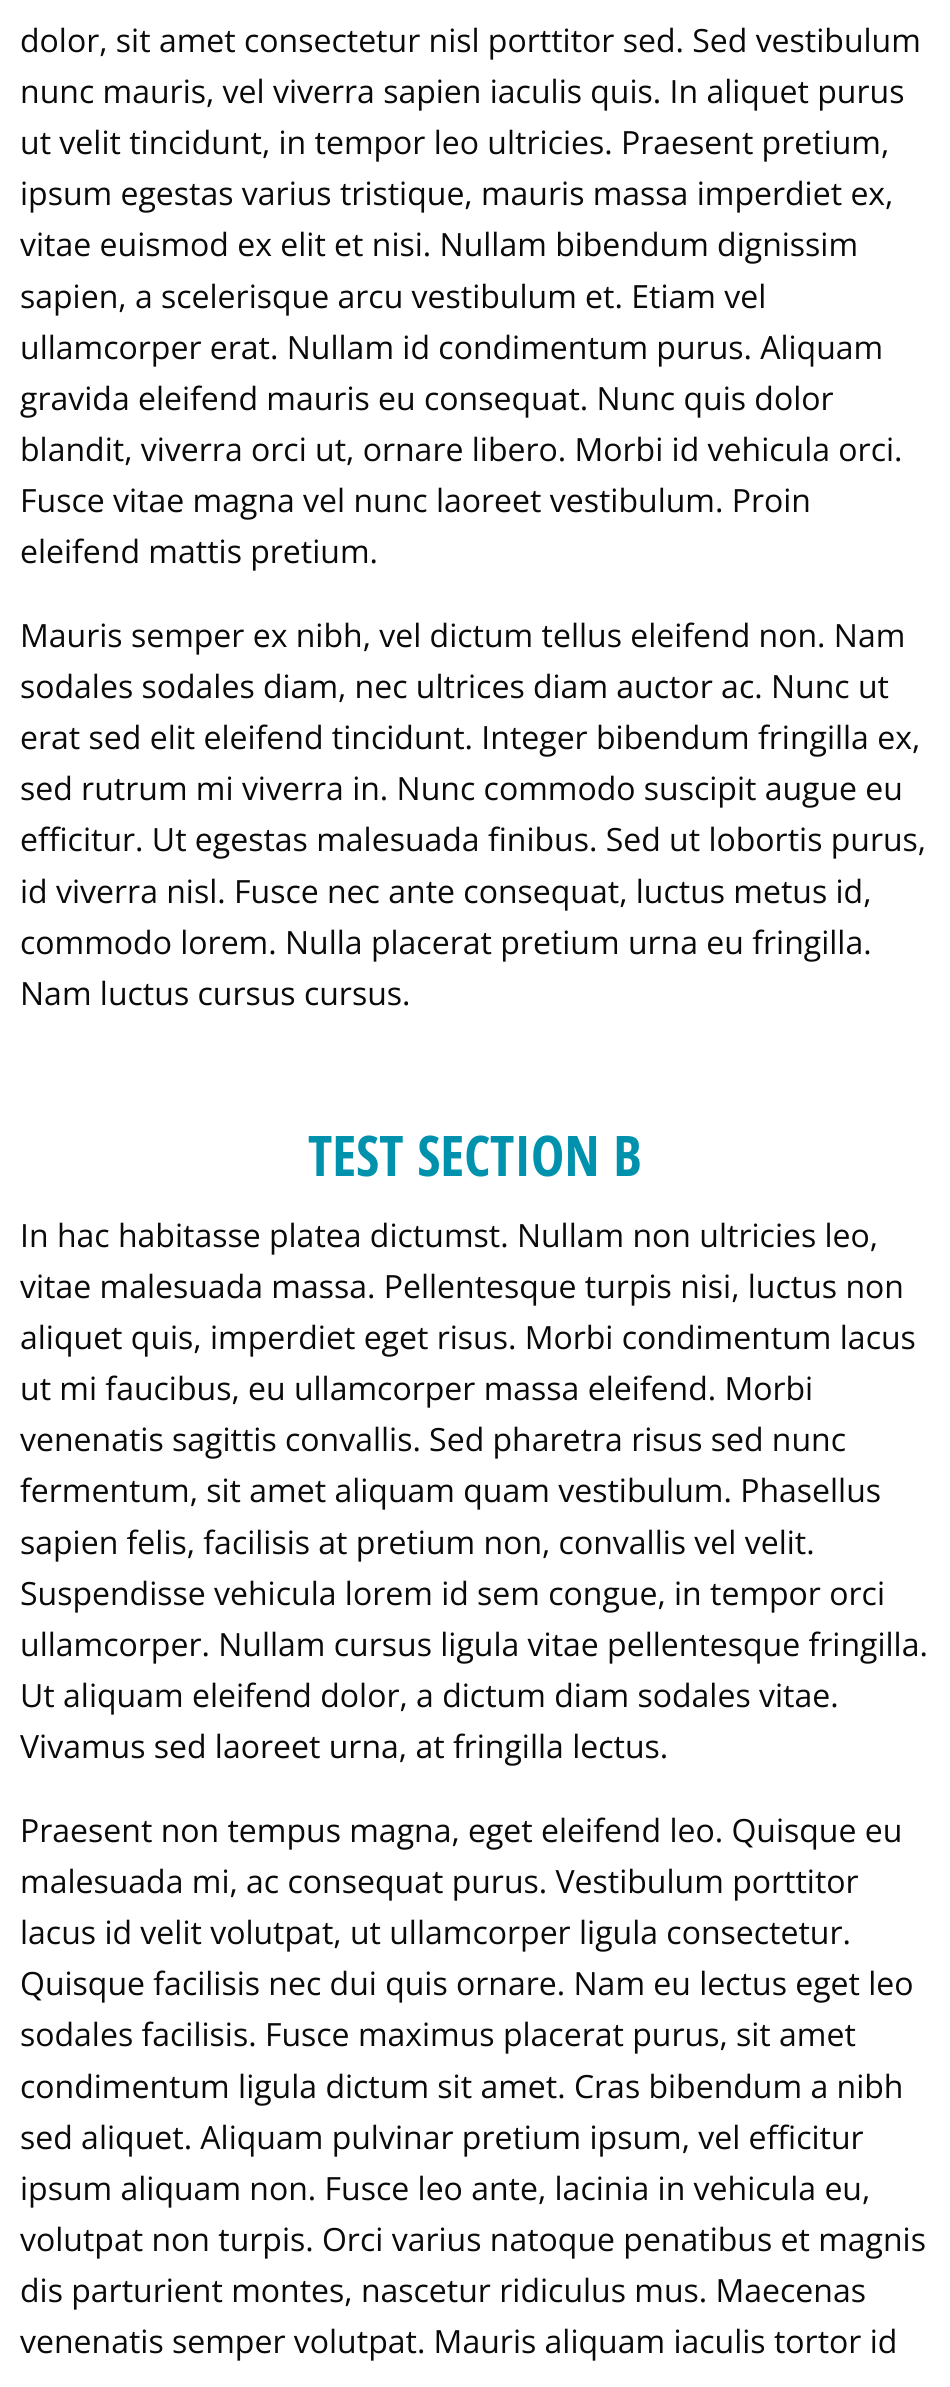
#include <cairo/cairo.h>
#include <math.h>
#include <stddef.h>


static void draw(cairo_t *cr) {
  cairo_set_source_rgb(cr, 1, 1, 1);
  cairo_paint(cr);
  cairo_select_font_face(cr, "Open Sans", CAIRO_FONT_SLANT_NORMAL, CAIRO_FONT_WEIGHT_NORMAL);
  cairo_set_font_size(cr, 32);
  cairo_set_source_rgb(cr, 10 / 255.0, 10 / 255.0, 10 / 255.0);
  cairo_move_to(cr, 20, 52);
  cairo_show_text(cr, "dolor, sit amet consectetur nisl porttitor sed. Sed vestibulum");
  cairo_move_to(cr, 20, 103);
  cairo_show_text(cr, "nunc mauris, vel viverra sapien iaculis quis. In aliquet purus");
  cairo_move_to(cr, 20, 154);
  cairo_show_text(cr, "ut velit tincidunt, in tempor leo ultricies. Praesent pretium,");
  cairo_move_to(cr, 20, 205);
  cairo_show_text(cr, "ipsum egestas varius tristique, mauris massa imperdiet ex,");
  cairo_move_to(cr, 20, 256);
  cairo_show_text(cr, "vitae euismod ex elit et nisi. Nullam bibendum dignissim");
  cairo_move_to(cr, 20, 308);
  cairo_show_text(cr, "sapien, a scelerisque arcu vestibulum et. Etiam vel");
  cairo_move_to(cr, 20, 359);
  cairo_show_text(cr, "ullamcorper erat. Nullam id condimentum purus. Aliquam");
  cairo_move_to(cr, 20, 410);
  cairo_show_text(cr, "gravida eleifend mauris eu consequat. Nunc quis dolor");
  cairo_move_to(cr, 20, 461);
  cairo_show_text(cr, "blandit, viverra orci ut, ornare libero. Morbi id vehicula orci.");
  cairo_move_to(cr, 20, 512);
  cairo_show_text(cr, "Fusce vitae magna vel nunc laoreet vestibulum. Proin");
  cairo_move_to(cr, 20, 563);
  cairo_show_text(cr, "eleifend mattis pretium.");
  cairo_move_to(cr, 20, 647);
  cairo_show_text(cr, "Mauris semper ex nibh, vel dictum tellus eleifend non. Nam");
  cairo_move_to(cr, 20, 698);
  cairo_show_text(cr, "sodales sodales diam, nec ultrices diam auctor ac. Nunc ut");
  cairo_move_to(cr, 20, 749);
  cairo_show_text(cr, "erat sed elit eleifend tincidunt. Integer bibendum fringilla ex,");
  cairo_move_to(cr, 20, 800);
  cairo_show_text(cr, "sed rutrum mi viverra in. Nunc commodo suscipit augue eu");
  cairo_move_to(cr, 20, 851);
  cairo_show_text(cr, "efficitur. Ut egestas malesuada finibus. Sed ut lobortis purus,");
  cairo_move_to(cr, 20, 903);
  cairo_show_text(cr, "id viverra nisl. Fusce nec ante consequat, luctus metus id,");
  cairo_move_to(cr, 20, 954);
  cairo_show_text(cr, "commodo lorem. Nulla placerat pretium urna eu fringilla.");
  cairo_move_to(cr, 20, 1005);
  cairo_show_text(cr, "Nam luctus cursus cursus.");
  cairo_select_font_face(cr, "Open Sans Condensed", CAIRO_FONT_SLANT_NORMAL, CAIRO_FONT_WEIGHT_BOLD);
  cairo_set_font_size(cr, 56);
  cairo_set_source_rgb(cr, 0, 145 / 255.0, 172 / 255.0);
  cairo_move_to(cr, 308, 1176);
  cairo_show_text(cr, "TEST SECTION B");
  cairo_select_font_face(cr, "Open Sans", CAIRO_FONT_SLANT_NORMAL, CAIRO_FONT_WEIGHT_NORMAL);
  cairo_set_font_size(cr, 32);
  cairo_set_source_rgb(cr, 10 / 255.0, 10 / 255.0, 10 / 255.0);
  cairo_move_to(cr, 20, 1247);
  cairo_show_text(cr, "In hac habitasse platea dictumst. Nullam non ultricies leo,");
  cairo_move_to(cr, 20, 1298);
  cairo_show_text(cr, "vitae malesuada massa. Pellentesque turpis nisi, luctus non");
  cairo_move_to(cr, 20, 1349);
  cairo_show_text(cr, "aliquet quis, imperdiet eget risus. Morbi condimentum lacus");
  cairo_move_to(cr, 20, 1400);
  cairo_show_text(cr, "ut mi faucibus, eu ullamcorper massa eleifend. Morbi");
  cairo_move_to(cr, 20, 1451);
  cairo_show_text(cr, "venenatis sagittis convallis. Sed pharetra risus sed nunc");
  cairo_move_to(cr, 20, 1502);
  cairo_show_text(cr, "fermentum, sit amet aliquam quam vestibulum. Phasellus");
  cairo_move_to(cr, 20, 1554);
  cairo_show_text(cr, "sapien felis, facilisis at pretium non, convallis vel velit.");
  cairo_move_to(cr, 20, 1605);
  cairo_show_text(cr, "Suspendisse vehicula lorem id sem congue, in tempor orci");
  cairo_move_to(cr, 20, 1656);
  cairo_show_text(cr, "ullamcorper. Nullam cursus ligula vitae pellentesque fringilla.");
  cairo_move_to(cr, 20, 1707);
  cairo_show_text(cr, "Ut aliquam eleifend dolor, a dictum diam sodales vitae.");
  cairo_move_to(cr, 20, 1758);
  cairo_show_text(cr, "Vivamus sed laoreet urna, at fringilla lectus.");
  cairo_move_to(cr, 20, 1842);
  cairo_show_text(cr, "Praesent non tempus magna, eget eleifend leo. Quisque eu");
  cairo_move_to(cr, 20, 1893);
  cairo_show_text(cr, "malesuada mi, ac consequat purus. Vestibulum porttitor");
  cairo_move_to(cr, 20, 1944);
  cairo_show_text(cr, "lacus id velit volutpat, ut ullamcorper ligula consectetur.");
  cairo_move_to(cr, 20, 1995);
  cairo_show_text(cr, "Quisque facilisis nec dui quis ornare. Nam eu lectus eget leo");
  cairo_move_to(cr, 20, 2046);
  cairo_show_text(cr, "sodales facilisis. Fusce maximus placerat purus, sit amet");
  cairo_move_to(cr, 20, 2098);
  cairo_show_text(cr, "condimentum ligula dictum sit amet. Cras bibendum a nibh");
  cairo_move_to(cr, 20, 2149);
  cairo_show_text(cr, "sed aliquet. Aliquam pulvinar pretium ipsum, vel efficitur");
  cairo_move_to(cr, 20, 2200);
  cairo_show_text(cr, "ipsum aliquam non. Fusce leo ante, lacinia in vehicula eu,");
  cairo_move_to(cr, 20, 2251);
  cairo_show_text(cr, "volutpat non turpis. Orci varius natoque penatibus et magnis");
  cairo_move_to(cr, 20, 2302);
  cairo_show_text(cr, "dis parturient montes, nascetur ridiculus mus. Maecenas");
  cairo_move_to(cr, 20, 2353);
  cairo_show_text(cr, "venenatis semper volutpat. Mauris aliquam iaculis tortor id");
}

int main(void) {
  cairo_surface_t *surface = cairo_image_surface_create(CAIRO_FORMAT_RGB24, 950, 2387);
  cairo_t *cr = cairo_create(surface);
  cairo_font_options_t *options = cairo_font_options_create();
  cairo_font_options_set_hint_metrics(options, CAIRO_HINT_METRICS_OFF);
  cairo_font_options_set_hint_style(options, CAIRO_HINT_STYLE_NONE);
  cairo_set_font_options(cr, options);
  cairo_set_miter_limit(cr, 4);
  draw(cr);
  cairo_surface_write_to_png(surface, "out.png");
  cairo_font_options_destroy(options);
  cairo_destroy(cr);
  cairo_surface_destroy(surface);
  return 0;
}
